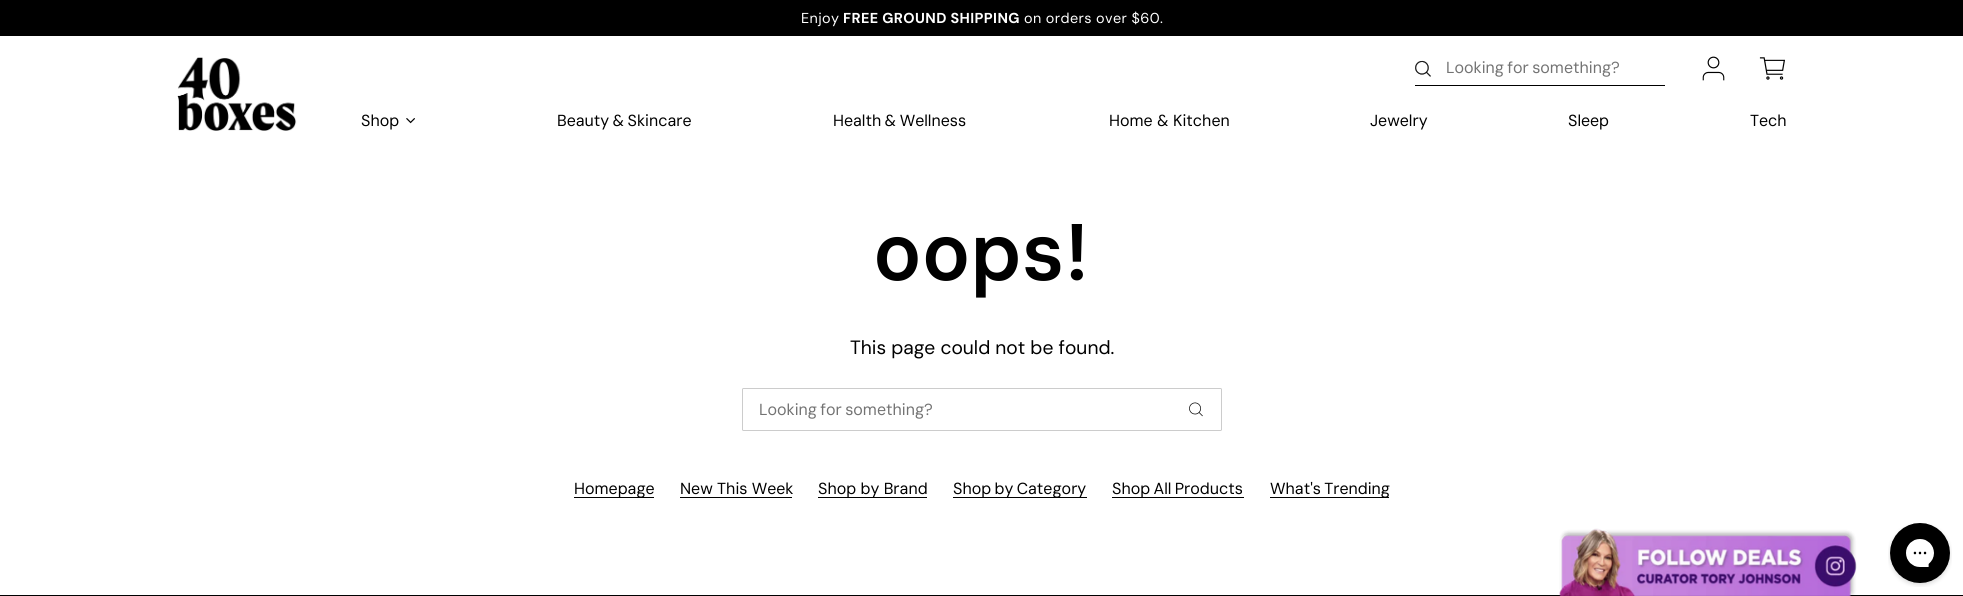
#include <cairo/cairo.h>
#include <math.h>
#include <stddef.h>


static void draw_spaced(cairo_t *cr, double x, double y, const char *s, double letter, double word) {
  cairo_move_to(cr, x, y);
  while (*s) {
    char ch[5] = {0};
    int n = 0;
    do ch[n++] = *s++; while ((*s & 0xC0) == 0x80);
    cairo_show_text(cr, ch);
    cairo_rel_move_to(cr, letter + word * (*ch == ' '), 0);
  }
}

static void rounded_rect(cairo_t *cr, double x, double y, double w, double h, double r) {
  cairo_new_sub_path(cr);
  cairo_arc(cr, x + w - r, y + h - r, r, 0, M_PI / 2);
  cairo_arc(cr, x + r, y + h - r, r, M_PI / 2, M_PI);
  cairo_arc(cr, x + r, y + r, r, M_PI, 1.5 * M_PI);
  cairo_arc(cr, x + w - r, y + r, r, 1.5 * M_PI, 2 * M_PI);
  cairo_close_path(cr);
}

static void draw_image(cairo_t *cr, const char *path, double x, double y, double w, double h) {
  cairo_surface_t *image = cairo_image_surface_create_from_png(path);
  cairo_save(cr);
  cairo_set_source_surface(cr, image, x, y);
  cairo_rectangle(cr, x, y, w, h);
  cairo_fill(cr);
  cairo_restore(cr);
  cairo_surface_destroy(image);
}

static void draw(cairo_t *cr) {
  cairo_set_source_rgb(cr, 1, 1, 1);
  cairo_paint(cr);
  cairo_set_source_rgb(cr, 0, 0, 0);
  cairo_rectangle(cr, 0, 0, 1963, 36);
  cairo_fill(cr);
  draw_image(cr, "images/1.png", 177, 57, 120, 74);
  draw_image(cr, "images/2.png", 1415, 60, 16, 17);
  cairo_rectangle(cr, 1415, 85, 250, 1);
  cairo_fill(cr);
  draw_image(cr, "images/3.png", 1702, 56, 23, 25);
  draw_image(cr, "images/4.png", 1759, 57, 26, 23);
  draw_image(cr, "images/5.png", 406, 118, 9, 6);
  rounded_rect(cr, 742.5, 388.5, 479, 42, 1);
  cairo_set_source_rgb(cr, 204 / 255.0, 204 / 255.0, 204 / 255.0);
  cairo_set_line_width(cr, 1);
  cairo_stroke(cr);
  draw_image(cr, "images/6.png", 1189, 402, 14, 15);
  cairo_set_source_rgb(cr, 0, 0, 0);
  cairo_rectangle(cr, 574, 497, 80, 1);
  cairo_fill(cr);
  cairo_rectangle(cr, 680, 497, 112, 1);
  cairo_fill(cr);
  cairo_rectangle(cr, 818, 497, 109, 1);
  cairo_fill(cr);
  cairo_rectangle(cr, 953, 497, 134, 1);
  cairo_fill(cr);
  cairo_rectangle(cr, 1112, 497, 132, 1);
  cairo_fill(cr);
  cairo_rectangle(cr, 1270, 497, 119, 1);
  cairo_fill(cr);
  cairo_rectangle(cr, 0, 595, 1963, 1);
  cairo_fill(cr);
  draw_image(cr, "images/7.png", 1559, 528, 298, 68);
  draw_image(cr, "images/8.png", 1888, 523, 64, 64);
  cairo_select_font_face(cr, "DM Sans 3", CAIRO_FONT_SLANT_NORMAL, CAIRO_FONT_WEIGHT_NORMAL);
  cairo_set_font_size(cr, 14.4);
  cairo_set_source_rgb(cr, 1, 1, 1);
  draw_spaced(cr, 801, 23, "Enjoy", 0.4, 0);
  cairo_select_font_face(cr, "DM Sans", CAIRO_FONT_SLANT_NORMAL, CAIRO_FONT_WEIGHT_BOLD);
  draw_spaced(cr, 843, 23, "FREE GROUND SHIPPING", 0.4, 0);
  cairo_select_font_face(cr, "DM Sans 3", CAIRO_FONT_SLANT_NORMAL, CAIRO_FONT_WEIGHT_NORMAL);
  draw_spaced(cr, 1024, 23, "on orders over $60.", 0.4, 0);
  cairo_select_font_face(cr, "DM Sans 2", CAIRO_FONT_SLANT_NORMAL, CAIRO_FONT_WEIGHT_NORMAL);
  cairo_set_font_size(cr, 16);
  cairo_set_source_rgb(cr, 115 / 255.0, 115 / 255.0, 115 / 255.0);
  draw_spaced(cr, 1446, 73, "Looking for something?", 0, -1);
  cairo_set_source_rgb(cr, 0, 0, 0);
  cairo_move_to(cr, 361, 126);
  cairo_show_text(cr, "Shop");
  draw_spaced(cr, 557, 126, "Beauty & Skincare", 0, -1);
  draw_spaced(cr, 833, 126, "Health & Wellness", 0, -1);
  cairo_move_to(cr, 1109, 126);
  cairo_show_text(cr, "Home & Kitchen");
  cairo_move_to(cr, 1370, 126);
  cairo_show_text(cr, "Jewelry");
  cairo_move_to(cr, 1568, 126);
  cairo_show_text(cr, "Sleep");
  cairo_move_to(cr, 1750, 126);
  cairo_show_text(cr, "Tech");
  cairo_select_font_face(cr, "DM Sans SemiBold", CAIRO_FONT_SLANT_NORMAL, CAIRO_FONT_WEIGHT_NORMAL);
  cairo_set_font_size(cr, 80);
  cairo_move_to(cr, 873, 280);
  cairo_show_text(cr, "oops!");
  cairo_select_font_face(cr, "DM Sans", CAIRO_FONT_SLANT_NORMAL, CAIRO_FONT_WEIGHT_NORMAL);
  cairo_set_font_size(cr, 19.25);
  cairo_move_to(cr, 850, 354);
  cairo_show_text(cr, "This page could not be found.");
  cairo_select_font_face(cr, "DM Sans 2", CAIRO_FONT_SLANT_NORMAL, CAIRO_FONT_WEIGHT_NORMAL);
  cairo_set_font_size(cr, 16);
  cairo_set_source_rgb(cr, 115 / 255.0, 115 / 255.0, 115 / 255.0);
  draw_spaced(cr, 759, 415, "Looking for something?", 0, -1);
  cairo_set_source_rgb(cr, 0, 0, 0);
  cairo_move_to(cr, 574, 494);
  cairo_show_text(cr, "Homepage");
  cairo_move_to(cr, 680, 494);
  cairo_show_text(cr, "New This Week");
  cairo_move_to(cr, 818, 494);
  cairo_show_text(cr, "Shop by Brand");
  draw_spaced(cr, 953, 494, "Shop by Category", 0, -1);
  draw_spaced(cr, 1112, 494, "Shop All Products", 0, -1);
  draw_spaced(cr, 1270, 494, "What's Trending", 0, -1);
}

int main(void) {
  cairo_surface_t *surface = cairo_image_surface_create(CAIRO_FORMAT_RGB24, 1963, 596);
  cairo_t *cr = cairo_create(surface);
  cairo_font_options_t *options = cairo_font_options_create();
  cairo_font_options_set_hint_metrics(options, CAIRO_HINT_METRICS_OFF);
  cairo_font_options_set_hint_style(options, CAIRO_HINT_STYLE_NONE);
  cairo_set_font_options(cr, options);
  cairo_set_miter_limit(cr, 4);
  draw(cr);
  cairo_surface_write_to_png(surface, "out.png");
  cairo_font_options_destroy(options);
  cairo_destroy(cr);
  cairo_surface_destroy(surface);
  return 0;
}
